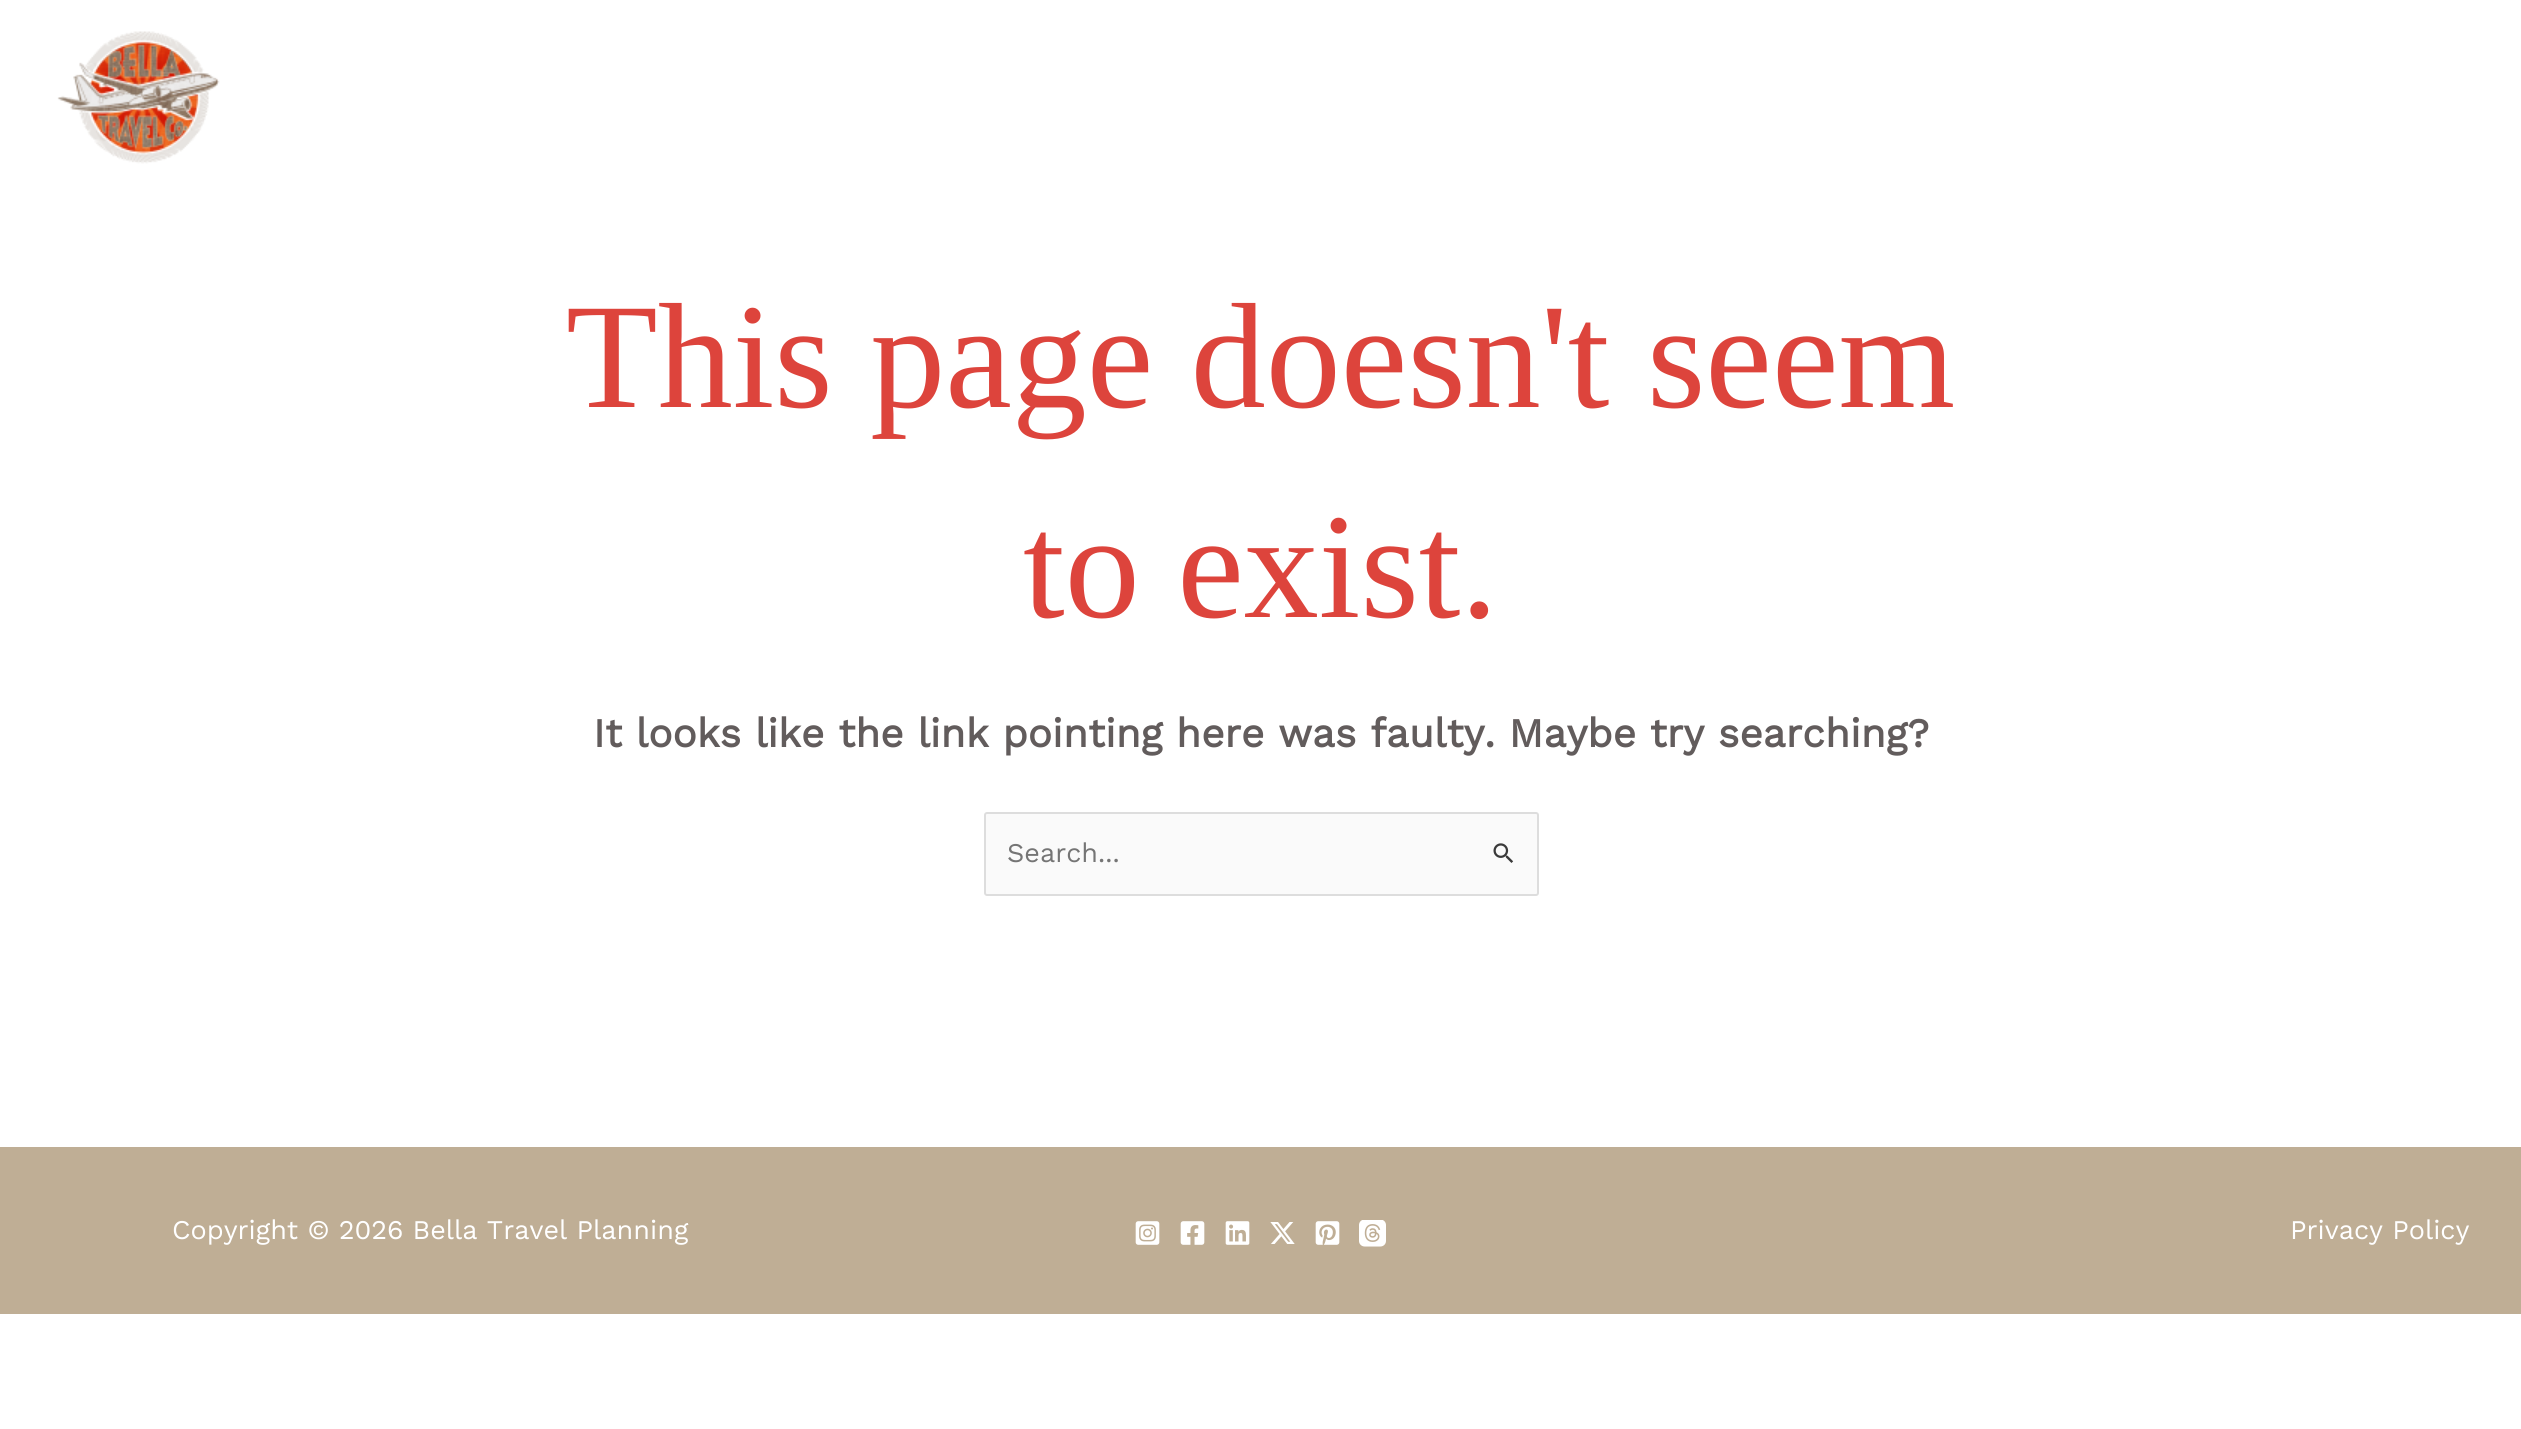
#include <cairo/cairo.h>
#include <math.h>
#include <stddef.h>


static void rounded_rect(cairo_t *cr, double x, double y, double w, double h, double r) {
  cairo_new_sub_path(cr);
  cairo_arc(cr, x + w - r, y + h - r, r, 0, M_PI / 2);
  cairo_arc(cr, x + r, y + h - r, r, M_PI / 2, M_PI);
  cairo_arc(cr, x + r, y + r, r, M_PI, 1.5 * M_PI);
  cairo_arc(cr, x + w - r, y + r, r, 1.5 * M_PI, 2 * M_PI);
  cairo_close_path(cr);
}

static void draw_image(cairo_t *cr, const char *path, double x, double y, double w, double h) {
  cairo_surface_t *image = cairo_image_surface_create_from_png(path);
  cairo_save(cr);
  cairo_set_source_surface(cr, image, x, y);
  cairo_rectangle(cr, x, y, w, h);
  cairo_fill(cr);
  cairo_restore(cr);
  cairo_surface_destroy(image);
}

static void draw(cairo_t *cr) {
  cairo_set_source_rgb(cr, 1, 1, 1);
  cairo_paint(cr);
  draw_image(cr, "images/1.png", 57, 31, 163, 133);
  cairo_set_source_rgb(cr, 250 / 255.0, 250 / 255.0, 250 / 255.0);
  rounded_rect(cr, 985, 813, 553, 82, 2);
  cairo_fill_preserve(cr);
  cairo_set_source_rgb(cr, 221 / 255.0, 221 / 255.0, 221 / 255.0);
  cairo_stroke(cr);
  draw_image(cr, "images/2.png", 1493, 843, 21, 20);
  cairo_set_source_rgb(cr, 191 / 255.0, 174 / 255.0, 149 / 255.0);
  cairo_rectangle(cr, 0, 1147, 2521, 167);
  cairo_fill(cr);
  draw_image(cr, "images/3.png", 1135, 1221, 25, 24);
  draw_image(cr, "images/4.png", 1180, 1221, 25, 24);
  draw_image(cr, "images/5.png", 1225, 1221, 25, 24);
  draw_image(cr, "images/6.png", 1270, 1222, 25, 22);
  draw_image(cr, "images/7.png", 1315, 1221, 25, 24);
  draw_image(cr, "images/8.png", 1359, 1220, 27, 27);
  cairo_select_font_face(cr, "Liberation Serif", CAIRO_FONT_SLANT_NORMAL, CAIRO_FONT_WEIGHT_NORMAL);
  cairo_set_font_size(cr, 150);
  cairo_set_source_rgb(cr, 221 / 255.0, 68 / 255.0, 60 / 255.0);
  cairo_move_to(cr, 566, 407);
  cairo_show_text(cr, "This page doesn't seem");
  cairo_move_to(cr, 1023, 617);
  cairo_show_text(cr, "to exist.");
  cairo_select_font_face(cr, "Work Sans", CAIRO_FONT_SLANT_NORMAL, CAIRO_FONT_WEIGHT_BOLD);
  cairo_set_font_size(cr, 40.5);
  cairo_set_source_rgb(cr, 98 / 255.0, 92 / 255.0, 92 / 255.0);
  cairo_move_to(cr, 593, 747);
  cairo_show_text(cr, "It looks like the link pointing here was faulty. Maybe try searching?");
  cairo_select_font_face(cr, "Work Sans", CAIRO_FONT_SLANT_NORMAL, CAIRO_FONT_WEIGHT_NORMAL);
  cairo_set_font_size(cr, 27);
  cairo_set_source_rgb(cr, 117 / 255.0, 117 / 255.0, 117 / 255.0);
  cairo_move_to(cr, 1007, 862);
  cairo_show_text(cr, "Search...");
  cairo_set_source_rgb(cr, 1, 1, 1);
  cairo_move_to(cr, 172, 1239);
  cairo_show_text(cr, "Copyright © 2026 Bella Travel Planning");
  cairo_move_to(cr, 2290, 1239);
  cairo_show_text(cr, "Privacy Policy");
}

int main(void) {
  cairo_surface_t *surface = cairo_image_surface_create(CAIRO_FORMAT_RGB24, 2521, 1429);
  cairo_t *cr = cairo_create(surface);
  cairo_font_options_t *options = cairo_font_options_create();
  cairo_font_options_set_hint_metrics(options, CAIRO_HINT_METRICS_OFF);
  cairo_font_options_set_hint_style(options, CAIRO_HINT_STYLE_NONE);
  cairo_set_font_options(cr, options);
  cairo_set_miter_limit(cr, 4);
  draw(cr);
  cairo_surface_write_to_png(surface, "out.png");
  cairo_font_options_destroy(options);
  cairo_destroy(cr);
  cairo_surface_destroy(surface);
  return 0;
}
